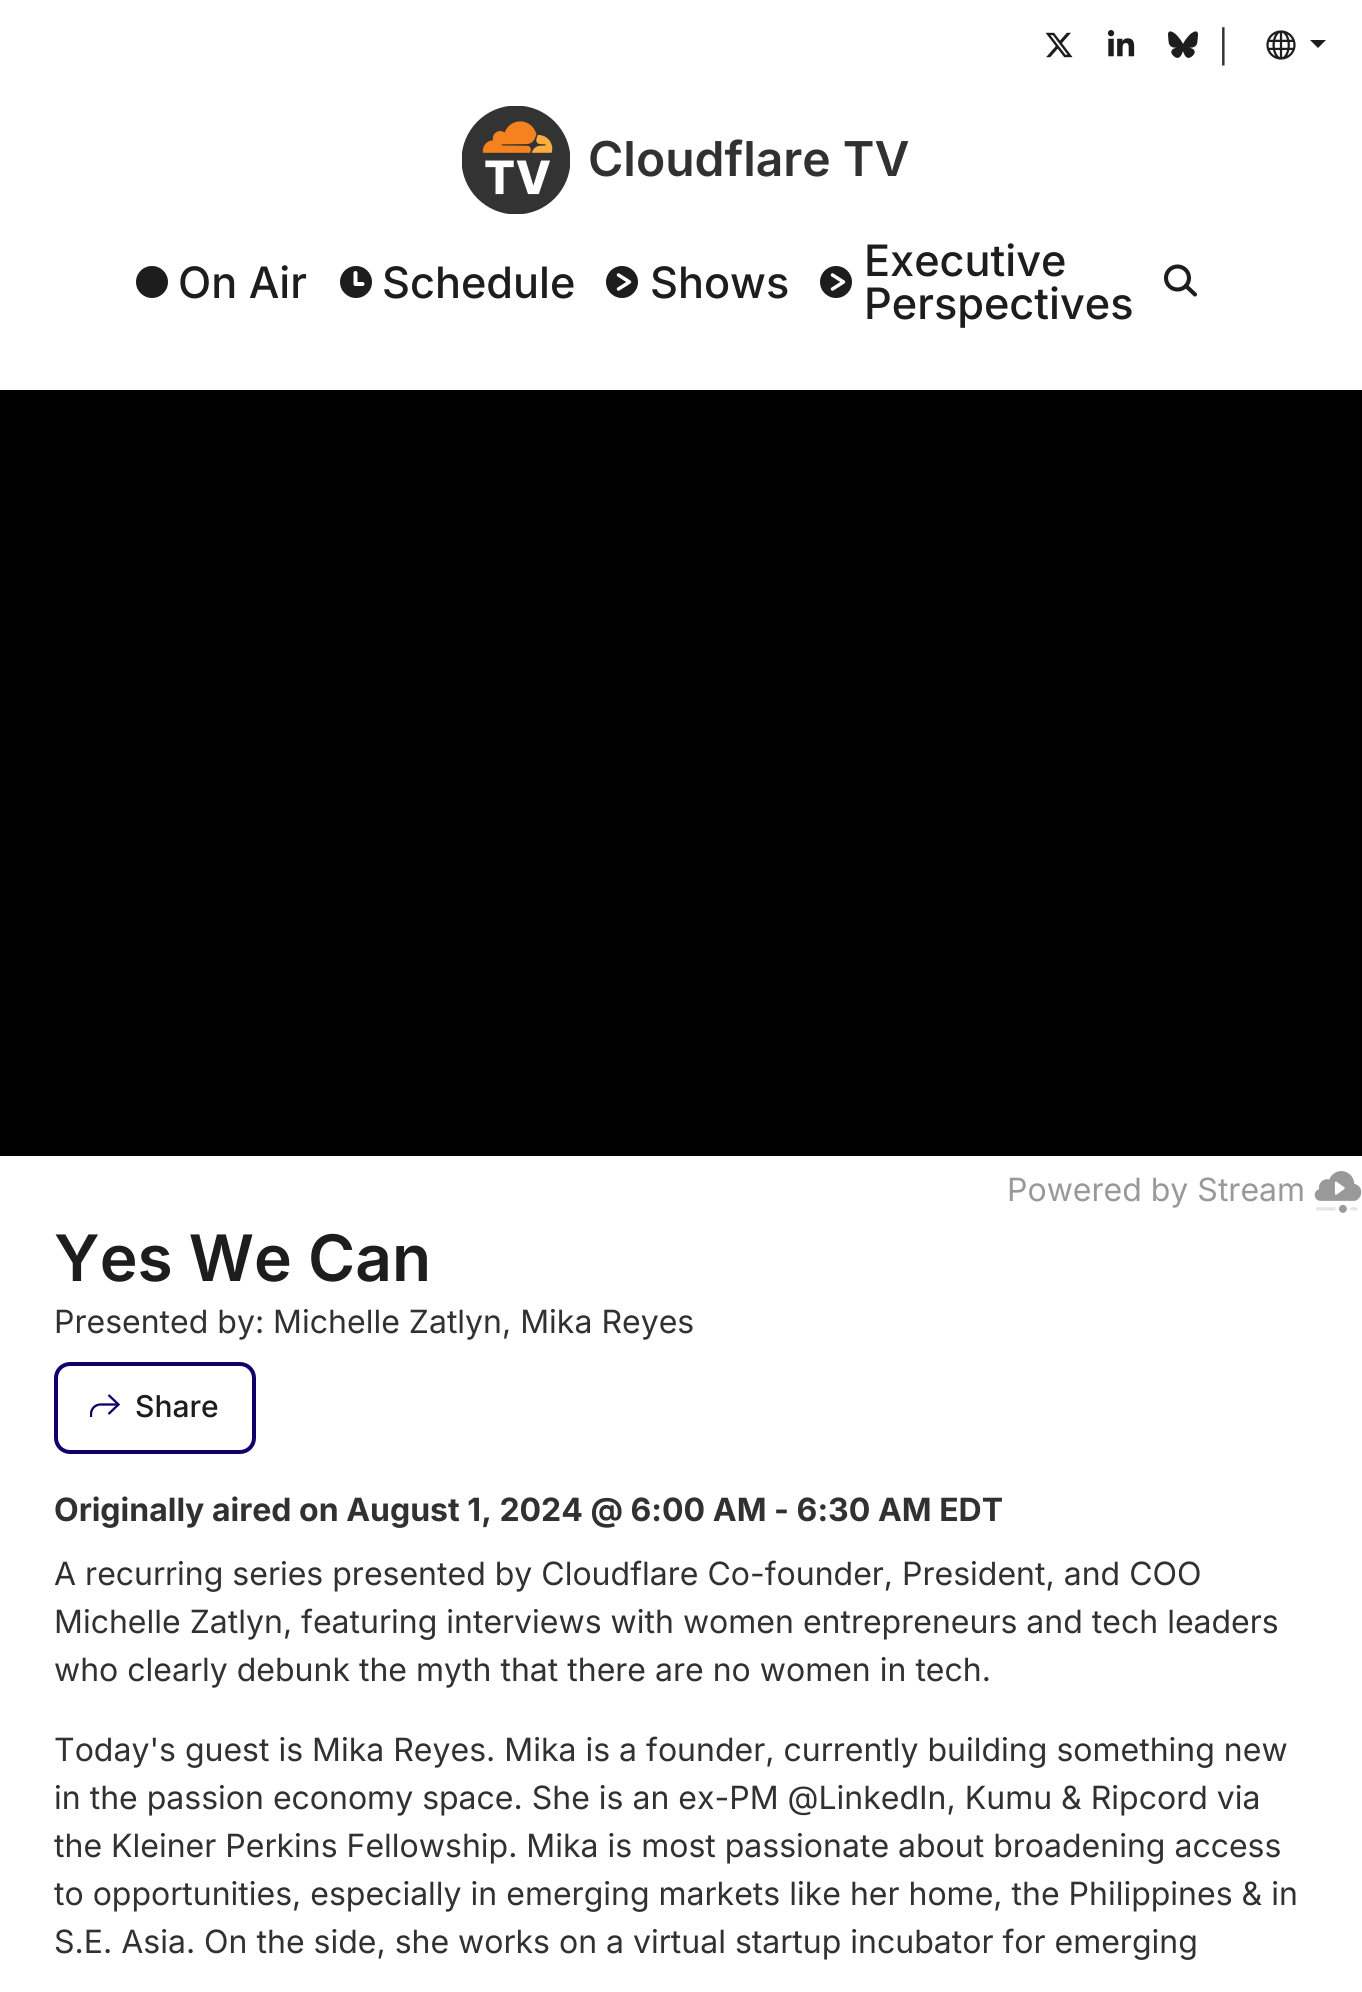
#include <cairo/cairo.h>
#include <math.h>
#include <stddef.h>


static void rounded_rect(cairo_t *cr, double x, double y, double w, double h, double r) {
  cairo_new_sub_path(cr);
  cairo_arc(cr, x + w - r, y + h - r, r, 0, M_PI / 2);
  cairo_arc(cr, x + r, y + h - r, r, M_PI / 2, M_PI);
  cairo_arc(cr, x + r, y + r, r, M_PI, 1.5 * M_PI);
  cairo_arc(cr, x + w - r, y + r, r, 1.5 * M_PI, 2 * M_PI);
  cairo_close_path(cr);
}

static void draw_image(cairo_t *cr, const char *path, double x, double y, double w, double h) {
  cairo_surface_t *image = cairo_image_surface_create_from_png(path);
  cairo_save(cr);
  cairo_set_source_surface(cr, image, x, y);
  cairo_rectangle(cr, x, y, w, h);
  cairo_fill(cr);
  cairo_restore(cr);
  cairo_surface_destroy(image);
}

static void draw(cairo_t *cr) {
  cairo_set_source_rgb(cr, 1, 1, 1);
  cairo_paint(cr);
  draw_image(cr, "images/1.png", 1045, 32, 28, 26);
  draw_image(cr, "images/2.png", 1107, 30, 28, 27);
  draw_image(cr, "images/3.png", 1168, 31, 30, 27);
  draw_image(cr, "images/4.png", 1266, 30, 30, 30);
  cairo_set_source_rgb(cr, 29 / 255.0, 29 / 255.0, 29 / 255.0);
  cairo_new_path(cr);
  cairo_move_to(cr, 1310, 40);
  cairo_line_to(cr, 1326, 40);
  cairo_line_to(cr, 1318, 48);
  cairo_close_path(cr);
  cairo_fill(cr);
  draw_image(cr, "images/5.png", 462, 106, 108, 108);
  cairo_arc(cr, 152, 282, 16, 0, 2 * M_PI);
  cairo_fill(cr);
  cairo_arc(cr, 356, 282, 16, 0, 2 * M_PI);
  cairo_fill(cr);
  cairo_new_path(cr);
  cairo_move_to(cr, 355.5, 273);
  cairo_line_to(cr, 355.5, 284);
  cairo_line_to(cr, 362.5, 284);
  cairo_set_source_rgb(cr, 1, 1, 1);
  cairo_set_line_width(cr, 4);
  cairo_set_line_cap(cr, CAIRO_LINE_CAP_ROUND);
  cairo_set_line_join(cr, CAIRO_LINE_JOIN_ROUND);
  cairo_stroke(cr);
  cairo_set_source_rgb(cr, 29 / 255.0, 29 / 255.0, 29 / 255.0);
  cairo_arc(cr, 622, 282, 16, 0, 2 * M_PI);
  cairo_fill(cr);
  cairo_new_path(cr);
  cairo_move_to(cr, 618.5, 275);
  cairo_line_to(cr, 629.5, 282);
  cairo_line_to(cr, 618.5, 289);
  cairo_set_source_rgb(cr, 1, 1, 1);
  cairo_set_line_width(cr, 3.5);
  cairo_stroke(cr);
  cairo_set_source_rgb(cr, 29 / 255.0, 29 / 255.0, 29 / 255.0);
  cairo_arc(cr, 836, 282, 16, 0, 2 * M_PI);
  cairo_fill(cr);
  cairo_new_path(cr);
  cairo_move_to(cr, 832.5, 275);
  cairo_line_to(cr, 843.5, 282);
  cairo_line_to(cr, 832.5, 289);
  cairo_set_source_rgb(cr, 1, 1, 1);
  cairo_stroke(cr);
  cairo_arc(cr, 1177.5, 278, 11.5, 0, 2 * M_PI);
  cairo_set_source_rgb(cr, 29 / 255.0, 29 / 255.0, 29 / 255.0);
  cairo_set_line_width(cr, 4.1);
  cairo_set_line_cap(cr, CAIRO_LINE_CAP_BUTT);
  cairo_set_line_join(cr, CAIRO_LINE_JOIN_MITER);
  cairo_stroke(cr);
  cairo_new_path(cr);
  cairo_move_to(cr, 1186, 286);
  cairo_line_to(cr, 1195, 294.5);
  cairo_set_line_cap(cr, CAIRO_LINE_CAP_ROUND);
  cairo_set_line_join(cr, CAIRO_LINE_JOIN_ROUND);
  cairo_stroke(cr);
  cairo_set_source_rgb(cr, 0, 0, 0);
  cairo_rectangle(cr, 0, 390, 1362, 766);
  cairo_fill(cr);
  draw_image(cr, "images/6.png", 1314, 1171, 48, 42);
  rounded_rect(cr, 56, 1364, 198, 88, 14);
  cairo_set_source_rgb(cr, 15 / 255.0, 0, 107 / 255.0);
  cairo_set_line_width(cr, 4);
  cairo_set_line_cap(cr, CAIRO_LINE_CAP_BUTT);
  cairo_set_line_join(cr, CAIRO_LINE_JOIN_MITER);
  cairo_stroke(cr);
  cairo_new_path(cr);
  cairo_move_to(cr, 108.5, 1414);
  cairo_line_to(cr, 118.5, 1404.5);
  cairo_line_to(cr, 108.5, 1395);
  cairo_set_line_width(cr, 2.3);
  cairo_stroke(cr);
  cairo_save(cr);
  cairo_rectangle(cr, 90, 1394, 30, 24);
  cairo_clip(cr);
  cairo_new_path(cr);
  cairo_move_to(cr, 118, 1404.5);
  cairo_line_to(cr, 100.5, 1404.5);
  cairo_curve_to(cr, 95.5, 1404.5, 91, 1408.5, 91, 1414);
  cairo_line_to(cr, 91, 1417);
  cairo_stroke(cr);
  cairo_restore(cr);
  cairo_select_font_face(cr, "Inter", CAIRO_FONT_SLANT_NORMAL, CAIRO_FONT_WEIGHT_NORMAL);
  cairo_set_font_size(cr, 32);
  cairo_set_source_rgb(cr, 49 / 255.0, 49 / 255.0, 49 / 255.0);
  cairo_move_to(cr, 1218, 58);
  cairo_show_text(cr, "|");
  cairo_select_font_face(cr, "Inter SemiBold", CAIRO_FONT_SLANT_NORMAL, CAIRO_FONT_WEIGHT_NORMAL);
  cairo_set_font_size(cr, 48);
  cairo_move_to(cr, 588, 176);
  cairo_show_text(cr, "Cloudflare TV");
  cairo_select_font_face(cr, "Inter Medium", CAIRO_FONT_SLANT_NORMAL, CAIRO_FONT_WEIGHT_NORMAL);
  cairo_set_font_size(cr, 43.25);
  cairo_set_source_rgb(cr, 29 / 255.0, 29 / 255.0, 29 / 255.0);
  cairo_move_to(cr, 178, 298);
  cairo_show_text(cr, "On Air");
  cairo_move_to(cr, 382, 298);
  cairo_show_text(cr, "Schedule");
  cairo_move_to(cr, 650, 298);
  cairo_show_text(cr, "Shows");
  cairo_move_to(cr, 864, 276);
  cairo_show_text(cr, "Executive");
  cairo_move_to(cr, 864, 319);
  cairo_show_text(cr, "Perspectives");
  cairo_select_font_face(cr, "Inter", CAIRO_FONT_SLANT_NORMAL, CAIRO_FONT_WEIGHT_NORMAL);
  cairo_set_font_size(cr, 32);
  cairo_set_source_rgb(cr, 153 / 255.0, 153 / 255.0, 153 / 255.0);
  cairo_move_to(cr, 1007, 1201);
  cairo_show_text(cr, "Powered by Stream");
  cairo_select_font_face(cr, "Inter SemiBold", CAIRO_FONT_SLANT_NORMAL, CAIRO_FONT_WEIGHT_NORMAL);
  cairo_set_font_size(cr, 64);
  cairo_set_source_rgb(cr, 29 / 255.0, 29 / 255.0, 29 / 255.0);
  cairo_move_to(cr, 54, 1281);
  cairo_show_text(cr, "Yes We Can");
  cairo_select_font_face(cr, "Inter", CAIRO_FONT_SLANT_NORMAL, CAIRO_FONT_WEIGHT_NORMAL);
  cairo_set_font_size(cr, 32);
  cairo_set_source_rgb(cr, 49 / 255.0, 49 / 255.0, 49 / 255.0);
  cairo_move_to(cr, 54, 1333);
  cairo_show_text(cr, "Presented by: Michelle Zatlyn, Mika Reyes");
  cairo_select_font_face(cr, "Inter Medium", CAIRO_FONT_SLANT_NORMAL, CAIRO_FONT_WEIGHT_NORMAL);
  cairo_set_font_size(cr, 30);
  cairo_set_source_rgb(cr, 29 / 255.0, 29 / 255.0, 29 / 255.0);
  cairo_move_to(cr, 135, 1417);
  cairo_show_text(cr, "Share");
  cairo_select_font_face(cr, "Inter", CAIRO_FONT_SLANT_NORMAL, CAIRO_FONT_WEIGHT_BOLD);
  cairo_set_font_size(cr, 32);
  cairo_set_source_rgb(cr, 49 / 255.0, 49 / 255.0, 49 / 255.0);
  cairo_move_to(cr, 54, 1521);
  cairo_show_text(cr, "Originally aired on August 1, 2024 @ 6:00 AM - 6:30 AM EDT");
  cairo_select_font_face(cr, "Inter", CAIRO_FONT_SLANT_NORMAL, CAIRO_FONT_WEIGHT_NORMAL);
  cairo_move_to(cr, 54, 1585);
  cairo_show_text(cr, "A recurring series presented by Cloudflare Co-founder, President, and COO");
  cairo_move_to(cr, 54, 1633);
  cairo_show_text(cr, "Michelle Zatlyn, featuring interviews with women entrepreneurs and tech leaders");
  cairo_move_to(cr, 54, 1681);
  cairo_show_text(cr, "who clearly debunk the myth that there are no women in tech.");
  cairo_move_to(cr, 54, 1761);
  cairo_show_text(cr, "Today's guest is Mika Reyes. Mika is a founder, currently building something new");
  cairo_move_to(cr, 54, 1809);
  cairo_show_text(cr, "in the passion economy space. She is an ex-PM @LinkedIn, Kumu & Ripcord via");
  cairo_move_to(cr, 54, 1857);
  cairo_show_text(cr, "the Kleiner Perkins Fellowship. Mika is most passionate about broadening access");
  cairo_move_to(cr, 54, 1905);
  cairo_show_text(cr, "to opportunities, especially in emerging markets like her home, the Philippines & in");
  cairo_move_to(cr, 54, 1953);
  cairo_show_text(cr, "S.E. Asia. On the side, she works on a virtual startup incubator for emerging");
}

int main(void) {
  cairo_surface_t *surface = cairo_image_surface_create(CAIRO_FORMAT_RGB24, 1362, 1992);
  cairo_t *cr = cairo_create(surface);
  cairo_font_options_t *options = cairo_font_options_create();
  cairo_font_options_set_hint_metrics(options, CAIRO_HINT_METRICS_OFF);
  cairo_font_options_set_hint_style(options, CAIRO_HINT_STYLE_NONE);
  cairo_set_font_options(cr, options);
  cairo_set_miter_limit(cr, 4);
  draw(cr);
  cairo_surface_write_to_png(surface, "out.png");
  cairo_font_options_destroy(options);
  cairo_destroy(cr);
  cairo_surface_destroy(surface);
  return 0;
}
